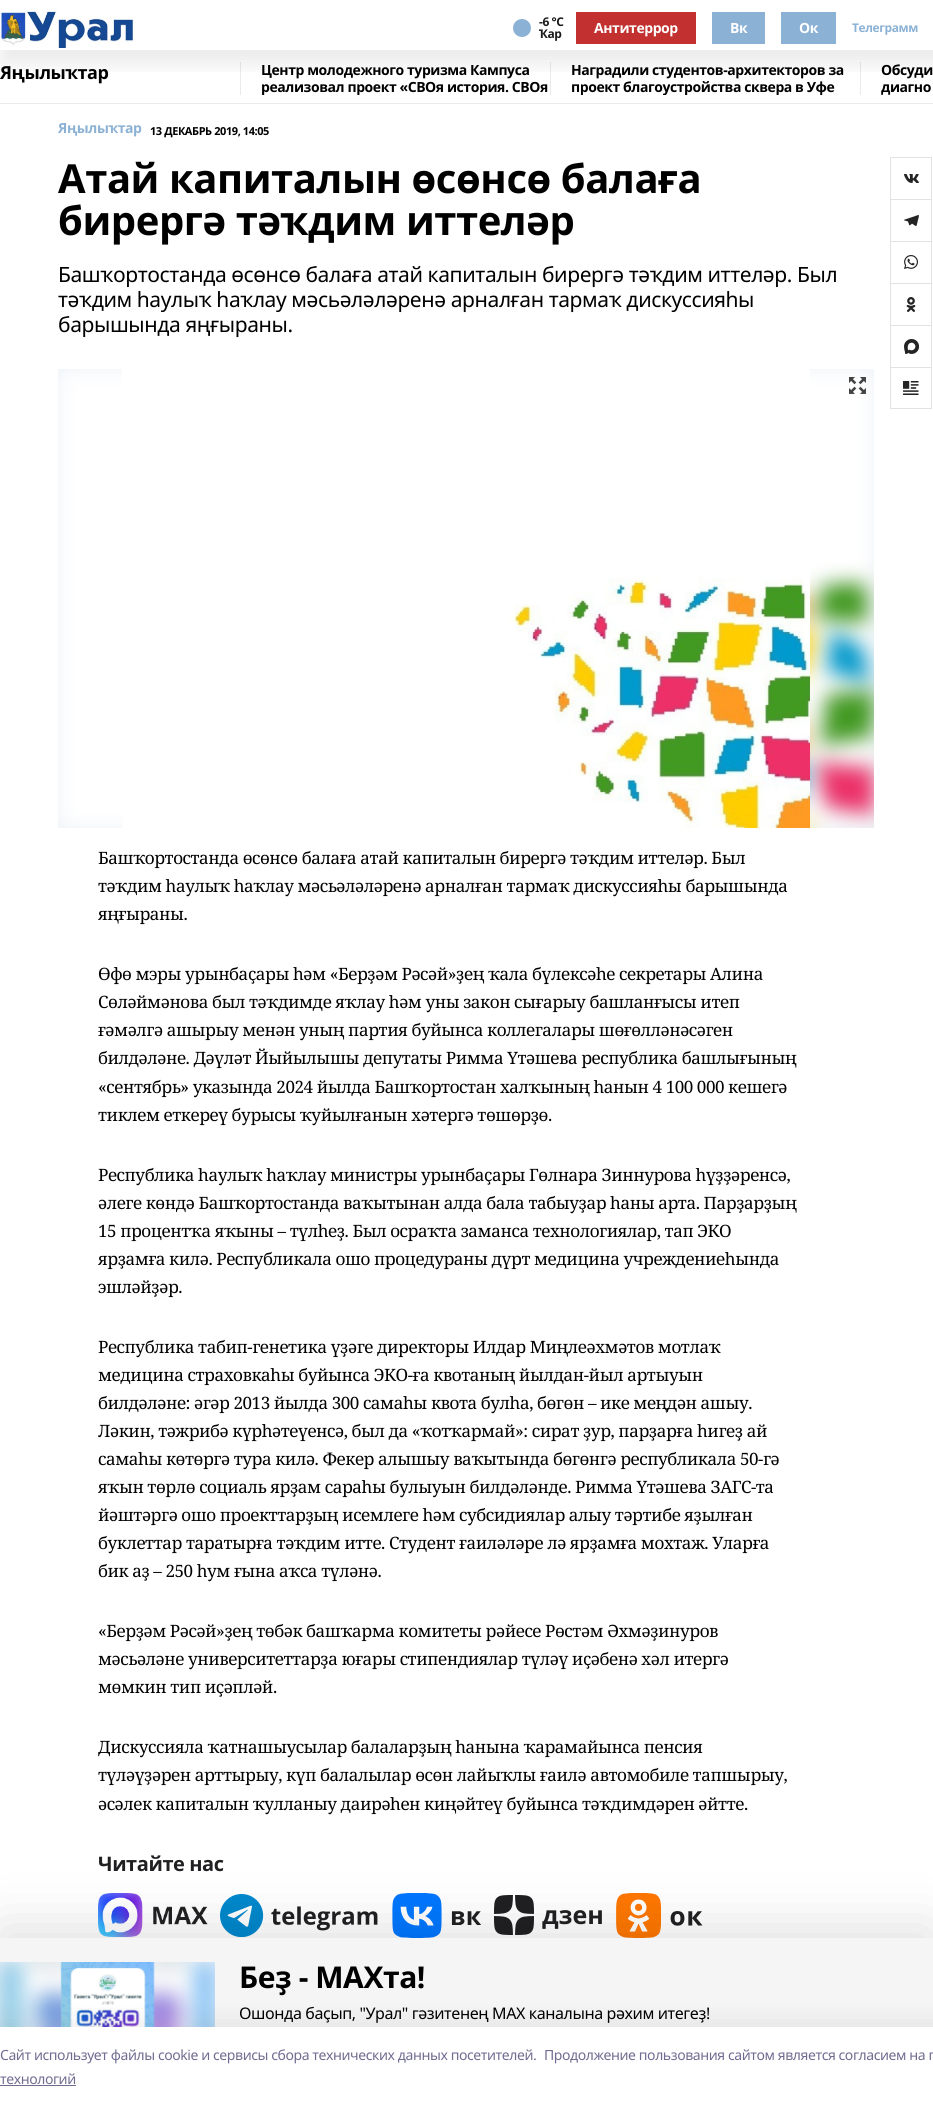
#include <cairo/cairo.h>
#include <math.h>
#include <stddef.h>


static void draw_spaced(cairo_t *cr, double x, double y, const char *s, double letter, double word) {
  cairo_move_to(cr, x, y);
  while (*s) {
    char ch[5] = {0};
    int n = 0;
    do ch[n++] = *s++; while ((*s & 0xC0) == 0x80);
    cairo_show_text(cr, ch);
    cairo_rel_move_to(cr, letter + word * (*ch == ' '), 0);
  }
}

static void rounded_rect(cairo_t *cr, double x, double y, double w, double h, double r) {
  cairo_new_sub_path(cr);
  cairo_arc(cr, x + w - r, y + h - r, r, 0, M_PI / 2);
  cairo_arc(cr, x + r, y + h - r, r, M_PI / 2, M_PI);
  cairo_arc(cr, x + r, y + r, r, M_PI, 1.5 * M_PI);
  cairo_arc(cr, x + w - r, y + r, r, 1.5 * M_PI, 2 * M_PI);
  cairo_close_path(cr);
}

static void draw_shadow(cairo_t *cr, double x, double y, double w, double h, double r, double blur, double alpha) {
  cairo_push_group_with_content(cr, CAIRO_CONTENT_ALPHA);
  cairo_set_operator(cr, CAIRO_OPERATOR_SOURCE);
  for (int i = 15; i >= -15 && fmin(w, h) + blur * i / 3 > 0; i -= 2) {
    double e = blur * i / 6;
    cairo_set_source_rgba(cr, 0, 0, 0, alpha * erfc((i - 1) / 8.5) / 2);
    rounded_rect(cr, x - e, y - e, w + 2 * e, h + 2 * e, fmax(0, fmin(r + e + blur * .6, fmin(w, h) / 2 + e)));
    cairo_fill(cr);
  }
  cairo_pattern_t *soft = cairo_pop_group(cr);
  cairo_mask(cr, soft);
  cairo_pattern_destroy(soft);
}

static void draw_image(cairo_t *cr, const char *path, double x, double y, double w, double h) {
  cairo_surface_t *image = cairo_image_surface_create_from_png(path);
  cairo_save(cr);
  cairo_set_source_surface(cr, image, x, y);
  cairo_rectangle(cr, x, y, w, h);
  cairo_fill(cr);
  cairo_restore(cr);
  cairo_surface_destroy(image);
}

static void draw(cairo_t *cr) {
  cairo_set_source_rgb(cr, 1, 1, 1);
  cairo_paint(cr);
  cairo_set_source_rgb(cr, 234 / 255.0, 234 / 255.0, 234 / 255.0);
  cairo_rectangle(cr, 240, 62, 1, 33);
  cairo_fill(cr);
  cairo_rectangle(cr, 550, 62, 1, 33);
  cairo_fill(cr);
  cairo_rectangle(cr, 860, 62, 1, 33);
  cairo_fill(cr);
  cairo_save(cr);
  cairo_rectangle(cr, 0, 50, 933, 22);
  cairo_clip(cr);
  cairo_set_source_rgb(cr, 0, 0, 0);
  draw_shadow(cr, 0, 15, 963, 50, 0, 10, 0.08);
  cairo_restore(cr);
  draw_image(cr, "images/1.png", 0, 8, 135, 40);
  cairo_set_source_rgb(cr, 139 / 255.0, 177 / 255.0, 212 / 255.0);
  cairo_arc(cr, 522, 28, 9, 0, 2 * M_PI);
  cairo_fill(cr);
  cairo_set_source_rgb(cr, 194 / 255.0, 48 / 255.0, 48 / 255.0);
  cairo_rectangle(cr, 576, 12, 120, 32);
  cairo_fill(cr);
  cairo_set_source_rgb(cr, 139 / 255.0, 177 / 255.0, 212 / 255.0);
  cairo_rectangle(cr, 712, 12, 53, 32);
  cairo_fill(cr);
  cairo_rectangle(cr, 781, 12, 55, 32);
  cairo_fill(cr);
  cairo_set_source_rgb(cr, 234 / 255.0, 234 / 255.0, 234 / 255.0);
  cairo_rectangle(cr, 0, 103, 933, 1);
  cairo_fill(cr);
  cairo_set_source_rgb(cr, 237 / 255.0, 242 / 255.0, 247 / 255.0);
  cairo_rectangle(cr, 58, 369, 816, 459);
  cairo_fill(cr);
  draw_image(cr, "images/2.png", 58, 369, 816, 459);
  draw_image(cr, "images/3.png", 122, 369, 688, 459);
  draw_image(cr, "images/4.png", 849, 377, 17, 17);
  draw_image(cr, "images/5.png", 98, 1893, 110, 44);
  draw_image(cr, "images/6.png", 220, 1894, 158, 43);
  draw_image(cr, "images/7.png", 392, 1893, 89, 45);
  draw_image(cr, "images/8.png", 494, 1895, 108, 40);
  draw_image(cr, "images/9.png", 616, 1893, 87, 45);
  draw_image(cr, "images/10.png", 904, 174, 15, 9);
  cairo_set_source_rgb(cr, 226 / 255.0, 226 / 255.0, 226 / 255.0);
  cairo_rectangle(cr, 890, 157, 42, 1);
  cairo_fill(cr);
  cairo_rectangle(cr, 931, 157, 1, 42);
  cairo_fill(cr);
  cairo_rectangle(cr, 890, 157, 1, 42);
  cairo_fill(cr);
  draw_image(cr, "images/11.png", 904, 215, 15, 11);
  cairo_rectangle(cr, 890, 199, 42, 1);
  cairo_fill(cr);
  cairo_rectangle(cr, 931, 199, 1, 42);
  cairo_fill(cr);
  cairo_rectangle(cr, 890, 199, 1, 42);
  cairo_fill(cr);
  draw_image(cr, "images/12.png", 904, 255, 14, 14);
  cairo_rectangle(cr, 890, 241, 42, 1);
  cairo_fill(cr);
  cairo_rectangle(cr, 931, 241, 1, 42);
  cairo_fill(cr);
  cairo_rectangle(cr, 890, 241, 1, 42);
  cairo_fill(cr);
  draw_image(cr, "images/13.png", 906, 297, 10, 15);
  cairo_rectangle(cr, 890, 283, 42, 1);
  cairo_fill(cr);
  cairo_rectangle(cr, 931, 283, 1, 42);
  cairo_fill(cr);
  cairo_rectangle(cr, 890, 283, 1, 42);
  cairo_fill(cr);
  draw_image(cr, "images/14.png", 904, 339, 15, 15);
  cairo_rectangle(cr, 890, 325, 42, 1);
  cairo_fill(cr);
  cairo_rectangle(cr, 931, 325, 1, 42);
  cairo_fill(cr);
  cairo_rectangle(cr, 890, 325, 1, 42);
  cairo_fill(cr);
  draw_image(cr, "images/15.png", 903, 381, 16, 14);
  cairo_rectangle(cr, 890.5, 367.5, 41, 41);
  cairo_set_line_width(cr, 1);
  cairo_stroke(cr);
  cairo_set_source_rgb(cr, 0, 0, 0);
  draw_shadow(cr, 0, 1928, 933, 169, 0, 30, 0.12);
  cairo_set_source_rgb(cr, 245 / 255.0, 245 / 255.0, 245 / 255.0);
  cairo_rectangle(cr, 0, 1938, 933, 89);
  cairo_fill(cr);
  cairo_set_source_rgb(cr, 237 / 255.0, 242 / 255.0, 247 / 255.0);
  cairo_rectangle(cr, 0, 1962, 215, 65);
  cairo_fill(cr);
  draw_image(cr, "images/16.png", 0, 1962, 215, 65);
  draw_image(cr, "images/17.png", 60, 1962, 95, 65);
  cairo_set_source_rgb(cr, 20 / 255.0, 20 / 255.0, 43 / 255.0);
  draw_shadow(cr, 0, 2021, 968, 80, 0, 11.5, 0.08);
  cairo_set_source_rgb(cr, 1, 1, 1);
  cairo_rectangle(cr, 0, 2027, 933, 80);
  cairo_fill(cr);
  cairo_set_source_rgb(cr, 111 / 255.0, 108 / 255.0, 144 / 255.0);
  cairo_rectangle(cr, 0, 2085, 76, 1);
  cairo_fill(cr);
  cairo_select_font_face(cr, "Noto Sans", CAIRO_FONT_SLANT_NORMAL, CAIRO_FONT_WEIGHT_BOLD);
  cairo_set_font_size(cr, 12);
  cairo_set_source_rgb(cr, 26 / 255.0, 26 / 255.0, 26 / 255.0);
  draw_spaced(cr, 539, 26, "-6 °С", -0.42, 0);
  draw_spaced(cr, 539, 38, "Ҡар", -0.42, 0);
  cairo_set_font_size(cr, 14);
  cairo_set_source_rgb(cr, 1, 1, 1);
  draw_spaced(cr, 594, 33, "Антитеррор", -0.42, 0);
  draw_spaced(cr, 730, 33, "Вк", -0.42, 0);
  draw_spaced(cr, 799, 33, "Ок", -0.42, 0);
  cairo_set_font_size(cr, 12);
  cairo_set_source_rgb(cr, 139 / 255.0, 177 / 255.0, 212 / 255.0);
  draw_spaced(cr, 852, 32, "Телеграмм", -0.42, 0);
  cairo_set_font_size(cr, 18);
  cairo_set_source_rgb(cr, 0, 0, 0);
  draw_spaced(cr, 0, 79, "Яңылыҡтар", -0.42, 0);
  cairo_set_font_size(cr, 14);
  draw_spaced(cr, 261, 75, "Центр молодежного туризма Кампуса", -0.42, 0);
  cairo_save(cr);
  cairo_rectangle(cr, 241, 62, 309, 33);
  cairo_clip(cr);
  draw_spaced(cr, 261, 92, "реализовал проект «СВОя история. СВОя", -0.42, 0);
  cairo_restore(cr);
  draw_spaced(cr, 571, 75, "Наградили студентов-архитекторов за", -0.42, 0);
  cairo_save(cr);
  cairo_rectangle(cr, 551, 62, 309, 33);
  cairo_clip(cr);
  draw_spaced(cr, 571, 92, "проект благоустройства сквера в Уфе", -0.42, 0);
  cairo_restore(cr);
  draw_spaced(cr, 881, 75, "Обсуди", -0.42, 0);
  draw_spaced(cr, 881, 92, "диагно", -0.42, 0);
  cairo_set_source_rgb(cr, 139 / 255.0, 177 / 255.0, 212 / 255.0);
  draw_spaced(cr, 58, 133, "Яңылыҡтар", -0.42, 0);
  cairo_set_font_size(cr, 11);
  cairo_set_source_rgb(cr, 0, 0, 0);
  draw_spaced(cr, 150, 135, "13 ДЕКАБРЬ 2019, 14:05", -0.42, 0);
  cairo_set_font_size(cr, 40);
  draw_spaced(cr, 58, 193, "Атай капиталын өсөнсө балаға", -0.42, 0);
  draw_spaced(cr, 58, 235, "бирергә тәҡдим иттеләр", -0.42, 0);
  cairo_select_font_face(cr, "Noto Sans", CAIRO_FONT_SLANT_NORMAL, CAIRO_FONT_WEIGHT_NORMAL);
  cairo_set_font_size(cr, 21);
  draw_spaced(cr, 58, 282, "Башҡортостанда өсөнсө балаға атай капиталын бирергә тәҡдим иттеләр. Был", -0.42, 0);
  draw_spaced(cr, 58, 307, "тәҡдим һаулыҡ һаҡлау мәсьәләләренә арналған тармаҡ дискуссияһы", -0.42, 0);
  draw_spaced(cr, 58, 332, "барышында яңғыраны.", -0.42, 0);
  cairo_select_font_face(cr, "Noto Serif", CAIRO_FONT_SLANT_NORMAL, CAIRO_FONT_WEIGHT_NORMAL);
  cairo_set_font_size(cr, 17);
  draw_spaced(cr, 98, 864, "Башҡортостанда өсөнсө балаға атай капиталын бирергә тәҡдим иттеләр. Был", -0.42, 0);
  draw_spaced(cr, 98, 892, "тәҡдим һаулыҡ һаҡлау мәсьәләләренә арналған тармаҡ дискуссияһы барышында", -0.42, 0);
  draw_spaced(cr, 98, 920, "яңғыраны.", -0.42, 0);
  draw_spaced(cr, 98, 980, "Өфө мэры урынбаҫары һәм «Берҙәм Рәсәй»ҙең ҡала бүлексәһе секретары Алина", -0.42, 0);
  draw_spaced(cr, 98, 1008, "Сөләймәнова был тәҡдимде яҡлау һәм уны закон сығарыу башланғысы итеп", -0.42, 0);
  draw_spaced(cr, 98, 1036, "ғәмәлгә ашырыу менән уның партия буйынса коллегалары шөғөлләнәсәген", -0.42, 0);
  draw_spaced(cr, 98, 1064, "билдәләне. Дәүләт Йыйылышы депутаты Римма Үтәшева республика башлығының", -0.42, 0);
  draw_spaced(cr, 98, 1093, "«сентябрь» указында 2024 йылда Башҡортостан халҡының һанын 4 100 000 кешегә", -0.42, 0);
  draw_spaced(cr, 98, 1121, "тиклем еткереү бурысы ҡуйылғанын хәтергә төшөрҙө.", -0.42, 0);
  draw_spaced(cr, 98, 1181, "Республика һаулыҡ һаҡлау министры урынбаҫары Гөлнара Зиннурова һүҙҙәренсә,", -0.42, 0);
  draw_spaced(cr, 98, 1209, "әлеге көндә Башҡортостанда ваҡытынан алда бала табыуҙар һаны арта. Парҙарҙың", -0.42, 0);
  draw_spaced(cr, 98, 1237, "15 процентҡа яҡыны – түлһеҙ. Был осраҡта заманса технологиялар, тап ЭКО", -0.42, 0);
  draw_spaced(cr, 98, 1265, "ярҙамға килә. Республикала ошо процедураны дүрт медицина учреждениеһында", -0.42, 0);
  draw_spaced(cr, 98, 1293, "эшләйҙәр.", -0.42, 0);
  draw_spaced(cr, 98, 1353, "Республика табип-генетика үҙәге директоры Илдар Миңлеәхмәтов мотлаҡ", -0.42, 0);
  draw_spaced(cr, 98, 1381, "медицина страховкаһы буйынса ЭКО-ға квотаның йылдан-йыл артыуын", -0.42, 0);
  draw_spaced(cr, 98, 1409, "билдәләне: әгәр 2013 йылда 300 самаһы квота булһа, бөгөн – ике меңдән ашыу.", -0.42, 0);
  draw_spaced(cr, 98, 1437, "Ләкин, тәжрибә күрһәтеүенсә, был да «ҡотҡармай»: сират ҙур, парҙарға һигеҙ ай", -0.42, 0);
  draw_spaced(cr, 98, 1465, "самаһы көтөргә тура килә. Фекер алышыу ваҡытында бөгөнгә республикала 50-гә", -0.42, 0);
  draw_spaced(cr, 98, 1493, "яҡын төрлө социаль ярҙам сараһы булыуын билдәләнде. Римма Үтәшева ЗАГС-та", -0.42, 0);
  draw_spaced(cr, 98, 1521, "йәштәргә ошо проекттарҙың исемлеге һәм субсидиялар алыу тәртибе яҙылған", -0.42, 0);
  draw_spaced(cr, 98, 1549, "буклеттар таратырға тәҡдим итте. Студент ғаиләләре лә ярҙамға мохтаж. Уларға", -0.42, 0);
  draw_spaced(cr, 98, 1577, "бик аҙ – 250 һум ғына аҡса түләнә.", -0.42, 0);
  draw_spaced(cr, 98, 1637, "«Берҙәм Рәсәй»ҙең төбәк башҡарма комитеты рәйесе Рөстәм Әхмәҙинуров", -0.42, 0);
  draw_spaced(cr, 98, 1665, "мәсьәләне университеттарҙа юғары стипендиялар түләү иҫәбенә хәл итергә", -0.42, 0);
  draw_spaced(cr, 98, 1693, "мөмкин тип иҫәпләй.", -0.42, 0);
  draw_spaced(cr, 98, 1753, "Дискуссияла ҡатнашыусылар балаларҙың һанына ҡарамайынса пенсия", -0.42, 0);
  draw_spaced(cr, 98, 1781, "түләүҙәрен арттырыу, күп балалылар өсөн лайыҡлы ғаилә автомобиле тапшырыу,", -0.42, 0);
  draw_spaced(cr, 98, 1810, "әсәлек капиталын ҡулланыу даирәһен киңәйтеү буйынса тәҡдимдәрен әйтте.", -0.42, 0);
  cairo_select_font_face(cr, "Noto Sans", CAIRO_FONT_SLANT_NORMAL, CAIRO_FONT_WEIGHT_BOLD);
  cairo_set_font_size(cr, 20);
  cairo_set_source_rgb(cr, 32 / 255.0, 32 / 255.0, 34 / 255.0);
  draw_spaced(cr, 98, 1871, "Читайте нас", -0.42, 0);
  cairo_set_font_size(cr, 30);
  cairo_set_source_rgb(cr, 0, 0, 0);
  draw_spaced(cr, 239, 1988, "Беҙ - МАХта!", -0.42, 0);
  cairo_select_font_face(cr, "Noto Sans", CAIRO_FONT_SLANT_NORMAL, CAIRO_FONT_WEIGHT_NORMAL);
  cairo_set_font_size(cr, 16);
  draw_spaced(cr, 239, 2019, "Ошонда баҫып, \"Урал\" гәзитенең МАХ каналына рәхим итегеҙ!", -0.42, 0);
  cairo_set_font_size(cr, 14);
  cairo_set_source_rgb(cr, 111 / 255.0, 108 / 255.0, 144 / 255.0);
  draw_spaced(cr, 0, 2060, "Cайт использует файлы cookie и сервисы сбора технических данных посетителей.", -0.42, 0);
  draw_spaced(cr, 544, 2060, "Продолжение пользования сайтом является согласием на п", -0.42, 0);
  draw_spaced(cr, 0, 2084, "технологий", -0.42, 0);
}

int main(void) {
  cairo_surface_t *surface = cairo_image_surface_create(CAIRO_FORMAT_RGB24, 933, 2107);
  cairo_t *cr = cairo_create(surface);
  cairo_font_options_t *options = cairo_font_options_create();
  cairo_font_options_set_hint_metrics(options, CAIRO_HINT_METRICS_OFF);
  cairo_font_options_set_hint_style(options, CAIRO_HINT_STYLE_NONE);
  cairo_set_font_options(cr, options);
  cairo_set_miter_limit(cr, 4);
  draw(cr);
  cairo_surface_write_to_png(surface, "out.png");
  cairo_font_options_destroy(options);
  cairo_destroy(cr);
  cairo_surface_destroy(surface);
  return 0;
}
